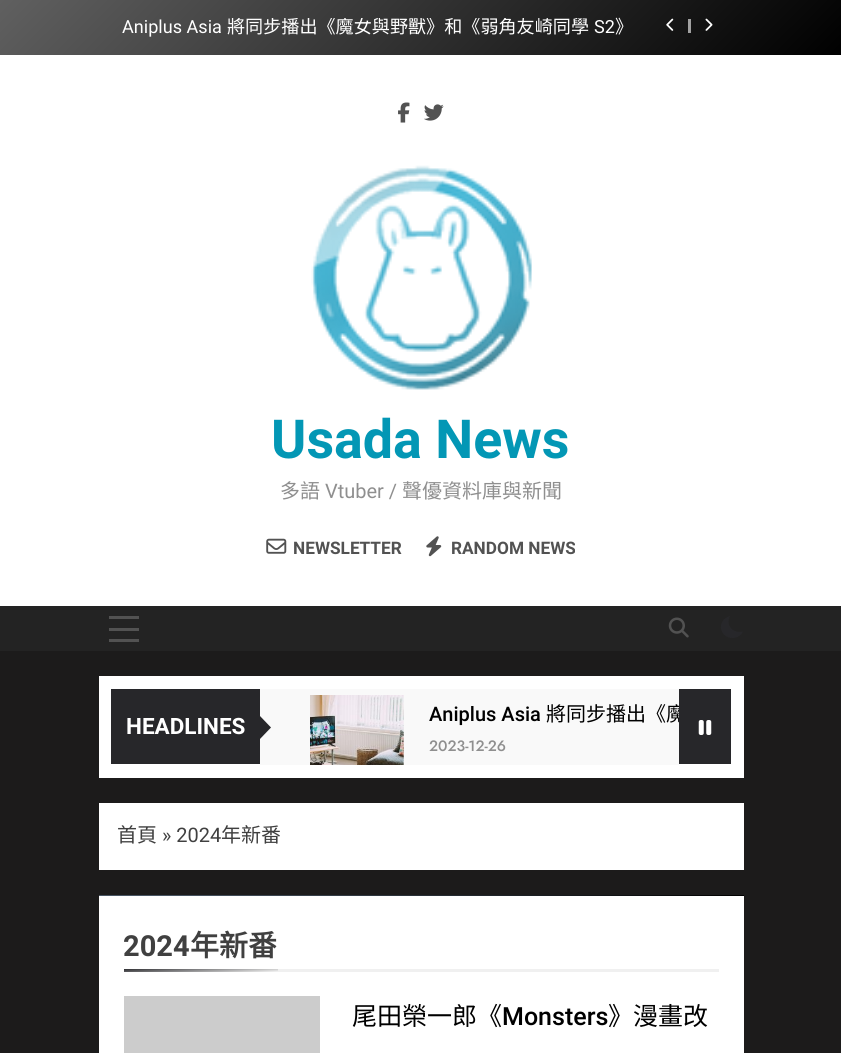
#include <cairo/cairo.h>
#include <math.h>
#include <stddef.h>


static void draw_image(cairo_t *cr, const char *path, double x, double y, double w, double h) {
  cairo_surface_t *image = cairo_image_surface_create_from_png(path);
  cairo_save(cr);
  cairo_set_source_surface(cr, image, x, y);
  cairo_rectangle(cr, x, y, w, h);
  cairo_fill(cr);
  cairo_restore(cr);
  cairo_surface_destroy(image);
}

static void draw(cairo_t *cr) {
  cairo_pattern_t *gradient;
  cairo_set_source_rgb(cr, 28 / 255.0, 27 / 255.0, 27 / 255.0);
  cairo_paint(cr);
  gradient = cairo_pattern_create_linear(197, -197, 645, 252);
  cairo_pattern_add_color_stop_rgba(gradient, 0, 96 / 255.0, 96 / 255.0, 96 / 255.0, 1);
  cairo_pattern_add_color_stop_rgba(gradient, 1, 0, 0, 0, 1);
  cairo_set_source(cr, gradient);
  cairo_pattern_destroy(gradient);
  cairo_rectangle(cr, 0, 0, 841, 55);
  cairo_fill(cr);
  draw_image(cr, "images/1.png", 666, 18, 8, 13);
  cairo_set_source_rgb(cr, 161 / 255.0, 161 / 255.0, 161 / 255.0);
  cairo_rectangle(cr, 688, 19, 3, 14);
  cairo_fill(cr);
  draw_image(cr, "images/2.png", 705, 18, 8, 13);
  cairo_set_source_rgb(cr, 1, 1, 1);
  cairo_rectangle(cr, 0, 55, 841, 551);
  cairo_fill(cr);
  draw_image(cr, "images/3.png", 398, 102, 12, 21);
  draw_image(cr, "images/4.png", 424, 104, 20, 17);
  draw_image(cr, "images/5.png", 311, 165, 221, 225);
  draw_image(cr, "images/6.png", 266, 538, 21, 16);
  draw_image(cr, "images/7.png", 426, 536, 16, 21);
  cairo_set_source_rgb(cr, 35 / 255.0, 35 / 255.0, 35 / 255.0);
  cairo_rectangle(cr, 0, 606, 841, 45);
  cairo_fill(cr);
  cairo_set_source_rgb(cr, 82 / 255.0, 82 / 255.0, 82 / 255.0);
  cairo_rectangle(cr, 109, 616, 30, 3);
  cairo_fill(cr);
  cairo_rectangle(cr, 109, 628, 30, 3);
  cairo_fill(cr);
  cairo_rectangle(cr, 109, 639, 30, 3);
  cairo_fill(cr);
  draw_image(cr, "images/8.png", 668, 617, 21, 21);
  cairo_set_source_rgb(cr, 39 / 255.0, 39 / 255.0, 42 / 255.0);
  cairo_new_path(cr);
  cairo_move_to(cr, 743, 631.5);
  cairo_curve_to(cr, 733.5, 634, 725, 625.5, 730, 616);
  cairo_curve_to(cr, 727, 617, 724, 618.5, 722.5, 621.5);
  cairo_curve_to(cr, 721, 624, 720.5, 626.5, 721, 629);
  cairo_curve_to(cr, 723.5, 640, 738.5, 641, 743, 631.5);
  cairo_close_path(cr);
  cairo_fill(cr);
  cairo_set_source_rgb(cr, 1, 1, 1);
  cairo_rectangle(cr, 99, 676, 645, 102);
  cairo_fill(cr);
  cairo_set_source_rgb(cr, 39 / 255.0, 39 / 255.0, 42 / 255.0);
  cairo_rectangle(cr, 111, 689, 149, 75);
  cairo_fill(cr);
  cairo_set_source_rgb(cr, 249 / 255.0, 249 / 255.0, 249 / 255.0);
  cairo_rectangle(cr, 260, 689, 419, 76);
  cairo_fill(cr);
  cairo_set_source_rgb(cr, 39 / 255.0, 39 / 255.0, 42 / 255.0);
  cairo_new_path(cr);
  cairo_move_to(cr, 259, 740);
  cairo_line_to(cr, 259, 715);
  cairo_line_to(cr, 271, 727.5);
  cairo_close_path(cr);
  cairo_fill(cr);
  draw_image(cr, "images/9.png", 310, 695, 94, 70);
  cairo_rectangle(cr, 679, 689, 52, 75);
  cairo_fill(cr);
  draw_image(cr, "images/10.png", 698, 720, 14, 15);
  cairo_set_source_rgb(cr, 1, 1, 1);
  cairo_rectangle(cr, 99, 803, 645, 67);
  cairo_fill(cr);
  cairo_rectangle(cr, 99, 896, 645, 157);
  cairo_fill(cr);
  gradient = cairo_pattern_create_linear(260, 734, 583, 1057);
  cairo_pattern_add_color_stop_rgba(gradient, 0.1, 72 / 255.0, 85 / 255.0, 99 / 255.0, 1);
  cairo_pattern_add_color_stop_rgba(gradient, 1, 0, 0, 0, 1);
  cairo_set_source(cr, gradient);
  cairo_pattern_destroy(gradient);
  cairo_rectangle(cr, 99, 895, 645, 1);
  cairo_fill(cr);
  cairo_set_source_rgb(cr, 240 / 255.0, 240 / 255.0, 240 / 255.0);
  cairo_rectangle(cr, 278, 969, 441, 3);
  cairo_fill(cr);
  gradient = cairo_pattern_create_linear(200, 963, 201, 977);
  cairo_pattern_add_color_stop_rgba(gradient, 0, 39 / 255.0, 39 / 255.0, 42 / 255.0, 1);
  cairo_pattern_add_color_stop_rgba(gradient, 1, 240 / 255.0, 240 / 255.0, 240 / 255.0, 1);
  cairo_set_source(cr, gradient);
  cairo_pattern_destroy(gradient);
  cairo_rectangle(cr, 124, 969, 154, 3);
  cairo_fill(cr);
  cairo_set_source_rgb(cr, 204 / 255.0, 204 / 255.0, 204 / 255.0);
  cairo_rectangle(cr, 124, 996, 196, 57);
  cairo_fill(cr);
  cairo_select_font_face(cr, "Roboto", CAIRO_FONT_SLANT_NORMAL, CAIRO_FONT_WEIGHT_NORMAL);
  cairo_set_font_size(cr, 18.1);
  cairo_set_source_rgb(cr, 1, 1, 1);
  cairo_move_to(cr, 122, 33);
  cairo_show_text(cr, "Aniplus Asia");
  cairo_save(cr);
  cairo_rectangle(cr, 119, 18, 515, 20);
  cairo_clip(cr);
  cairo_select_font_face(cr, "Noto Sans CJK TC", CAIRO_FONT_SLANT_NORMAL, CAIRO_FONT_WEIGHT_NORMAL);
  cairo_move_to(cr, 227, 33);
  cairo_show_text(cr, "將同步播出《魔女與野獸》和《弱角友崎同學");
  cairo_restore(cr);
  cairo_move_to(cr, 594, 33);
  cairo_show_text(cr, "S2");
  cairo_select_font_face(cr, "Noto Sans CJK TC", CAIRO_FONT_SLANT_NORMAL, CAIRO_FONT_WEIGHT_NORMAL);
  cairo_move_to(cr, 615, 33);
  cairo_show_text(cr, "》");
  cairo_select_font_face(cr, "Roboto", CAIRO_FONT_SLANT_NORMAL, CAIRO_FONT_WEIGHT_BOLD);
  cairo_set_font_size(cr, 53.75);
  cairo_set_source_rgb(cr, 3 / 255.0, 151 / 255.0, 181 / 255.0);
  cairo_move_to(cr, 271, 458);
  cairo_show_text(cr, "Usada News");
  cairo_select_font_face(cr, "Noto Sans CJK TC", CAIRO_FONT_SLANT_NORMAL, CAIRO_FONT_WEIGHT_NORMAL);
  cairo_set_font_size(cr, 20);
  cairo_set_source_rgb(cr, 143 / 255.0, 143 / 255.0, 143 / 255.0);
  cairo_move_to(cr, 280, 498);
  cairo_show_text(cr, "多語");
  cairo_select_font_face(cr, "Roboto", CAIRO_FONT_SLANT_NORMAL, CAIRO_FONT_WEIGHT_NORMAL);
  cairo_move_to(cr, 325, 498);
  cairo_show_text(cr, "Vtuber /");
  cairo_select_font_face(cr, "Noto Sans CJK TC", CAIRO_FONT_SLANT_NORMAL, CAIRO_FONT_WEIGHT_NORMAL);
  cairo_move_to(cr, 402, 498);
  cairo_show_text(cr, "聲優資料庫與新聞");
  cairo_select_font_face(cr, "Roboto", CAIRO_FONT_SLANT_NORMAL, CAIRO_FONT_WEIGHT_BOLD);
  cairo_set_font_size(cr, 17.25);
  cairo_set_source_rgb(cr, 82 / 255.0, 82 / 255.0, 82 / 255.0);
  cairo_move_to(cr, 293, 554);
  cairo_show_text(cr, "NEWSLETTER");
  cairo_move_to(cr, 451, 554);
  cairo_show_text(cr, "RANDOM NEWS");
  cairo_set_font_size(cr, 22.5);
  cairo_set_source_rgb(cr, 1, 1, 1);
  cairo_move_to(cr, 126, 734);
  cairo_show_text(cr, "HEADLINES");
  cairo_select_font_face(cr, "Roboto Medium", CAIRO_FONT_SLANT_NORMAL, CAIRO_FONT_WEIGHT_NORMAL);
  cairo_set_font_size(cr, 20);
  cairo_set_source_rgb(cr, 0, 0, 0);
  cairo_move_to(cr, 429, 721);
  cairo_show_text(cr, "Aniplus Asia");
  cairo_save(cr);
  cairo_rectangle(cr, 429, 698, 250, 30);
  cairo_clip(cr);
  cairo_select_font_face(cr, "Noto Sans CJK TC", CAIRO_FONT_SLANT_NORMAL, CAIRO_FONT_WEIGHT_NORMAL);
  cairo_move_to(cr, 546, 721);
  cairo_show_text(cr, "將同步播出《魔");
  cairo_restore(cr);
  cairo_select_font_face(cr, "Jost Medium", CAIRO_FONT_SLANT_NORMAL, CAIRO_FONT_WEIGHT_NORMAL);
  cairo_set_font_size(cr, 15);
  cairo_set_source_rgb(cr, 143 / 255.0, 143 / 255.0, 143 / 255.0);
  cairo_move_to(cr, 429, 751);
  cairo_show_text(cr, "2023-12-26");
  cairo_select_font_face(cr, "Noto Sans CJK TC", CAIRO_FONT_SLANT_NORMAL, CAIRO_FONT_WEIGHT_NORMAL);
  cairo_set_font_size(cr, 20);
  cairo_set_source_rgb(cr, 64 / 255.0, 64 / 255.0, 64 / 255.0);
  cairo_move_to(cr, 117, 842);
  cairo_show_text(cr, "首頁");
  cairo_select_font_face(cr, "Roboto", CAIRO_FONT_SLANT_NORMAL, CAIRO_FONT_WEIGHT_NORMAL);
  cairo_move_to(cr, 162, 842);
  cairo_show_text(cr, "» 2024");
  cairo_select_font_face(cr, "Noto Sans CJK TC", CAIRO_FONT_SLANT_NORMAL, CAIRO_FONT_WEIGHT_NORMAL);
  cairo_move_to(cr, 221, 842);
  cairo_show_text(cr, "年新番");
  cairo_select_font_face(cr, "Roboto", CAIRO_FONT_SLANT_NORMAL, CAIRO_FONT_WEIGHT_BOLD);
  cairo_set_font_size(cr, 29);
  cairo_move_to(cr, 123, 956);
  cairo_show_text(cr, "2024");
  cairo_select_font_face(cr, "Noto Sans CJK TC", CAIRO_FONT_SLANT_NORMAL, CAIRO_FONT_WEIGHT_BOLD);
  cairo_move_to(cr, 190, 956);
  cairo_show_text(cr, "年新番");
  cairo_select_font_face(cr, "Noto Sans CJK TC", CAIRO_FONT_SLANT_NORMAL, CAIRO_FONT_WEIGHT_NORMAL);
  cairo_set_font_size(cr, 25);
  cairo_set_source_rgb(cr, 0, 0, 0);
  cairo_move_to(cr, 352, 1025);
  cairo_show_text(cr, "尾田榮一郎《");
  cairo_select_font_face(cr, "Roboto Medium", CAIRO_FONT_SLANT_NORMAL, CAIRO_FONT_WEIGHT_NORMAL);
  cairo_move_to(cr, 502, 1025);
  cairo_show_text(cr, "Monsters");
  cairo_select_font_face(cr, "Noto Sans CJK TC", CAIRO_FONT_SLANT_NORMAL, CAIRO_FONT_WEIGHT_NORMAL);
  cairo_move_to(cr, 608, 1025);
  cairo_show_text(cr, "》漫畫改");
}

int main(void) {
  cairo_surface_t *surface = cairo_image_surface_create(CAIRO_FORMAT_RGB24, 841, 1053);
  cairo_t *cr = cairo_create(surface);
  cairo_font_options_t *options = cairo_font_options_create();
  cairo_font_options_set_hint_metrics(options, CAIRO_HINT_METRICS_OFF);
  cairo_font_options_set_hint_style(options, CAIRO_HINT_STYLE_NONE);
  cairo_set_font_options(cr, options);
  cairo_set_miter_limit(cr, 4);
  draw(cr);
  cairo_surface_write_to_png(surface, "out.png");
  cairo_font_options_destroy(options);
  cairo_destroy(cr);
  cairo_surface_destroy(surface);
  return 0;
}
